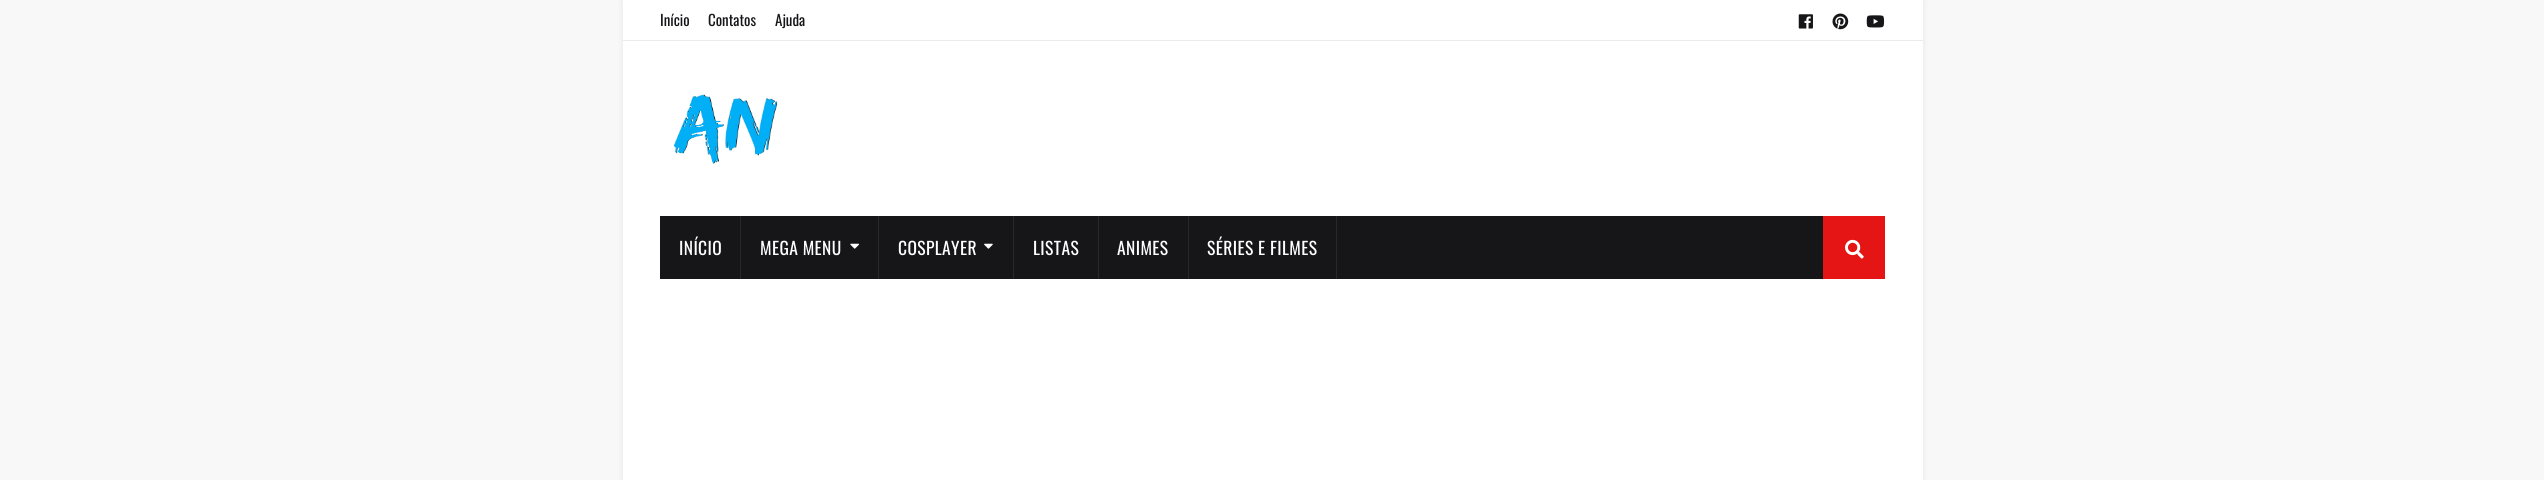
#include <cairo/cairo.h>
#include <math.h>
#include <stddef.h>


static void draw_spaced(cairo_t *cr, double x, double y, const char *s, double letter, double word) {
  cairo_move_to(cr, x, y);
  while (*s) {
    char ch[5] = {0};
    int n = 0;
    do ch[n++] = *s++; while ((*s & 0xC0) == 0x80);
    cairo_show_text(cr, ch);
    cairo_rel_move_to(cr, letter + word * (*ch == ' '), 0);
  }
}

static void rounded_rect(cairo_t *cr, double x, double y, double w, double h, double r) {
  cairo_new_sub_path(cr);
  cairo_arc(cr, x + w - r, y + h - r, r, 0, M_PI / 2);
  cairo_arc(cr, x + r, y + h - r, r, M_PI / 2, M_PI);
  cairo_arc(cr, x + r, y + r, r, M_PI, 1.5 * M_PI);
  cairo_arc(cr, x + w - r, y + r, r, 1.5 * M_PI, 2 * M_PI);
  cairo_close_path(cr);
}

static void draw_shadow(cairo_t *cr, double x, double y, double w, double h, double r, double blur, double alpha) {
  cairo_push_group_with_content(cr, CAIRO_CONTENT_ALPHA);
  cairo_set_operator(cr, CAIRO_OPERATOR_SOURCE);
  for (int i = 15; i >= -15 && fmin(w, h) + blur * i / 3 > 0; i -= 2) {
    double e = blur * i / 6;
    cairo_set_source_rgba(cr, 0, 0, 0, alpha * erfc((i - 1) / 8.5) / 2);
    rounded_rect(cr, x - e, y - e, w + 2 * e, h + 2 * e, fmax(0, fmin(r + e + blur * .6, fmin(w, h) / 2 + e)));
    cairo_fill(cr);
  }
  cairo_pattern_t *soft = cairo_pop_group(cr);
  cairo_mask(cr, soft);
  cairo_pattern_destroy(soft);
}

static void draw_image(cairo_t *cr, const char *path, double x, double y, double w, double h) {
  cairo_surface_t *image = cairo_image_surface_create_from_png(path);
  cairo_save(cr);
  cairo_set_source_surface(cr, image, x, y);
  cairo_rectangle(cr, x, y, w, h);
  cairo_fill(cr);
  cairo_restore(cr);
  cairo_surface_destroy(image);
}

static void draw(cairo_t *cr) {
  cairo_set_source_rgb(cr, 248 / 255.0, 248 / 255.0, 248 / 255.0);
  cairo_paint(cr);
  cairo_set_source_rgb(cr, 50 / 255.0, 50 / 255.0, 50 / 255.0);
  draw_shadow(cr, 623, 0, 1300, 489, 0, 3, 0.1);
  cairo_set_source_rgb(cr, 1, 1, 1);
  cairo_rectangle(cr, 623, 0, 1300, 480);
  cairo_fill(cr);
  cairo_set_source_rgb(cr, 235 / 255.0, 235 / 255.0, 235 / 255.0);
  cairo_rectangle(cr, 623, 40, 1300, 1);
  cairo_fill(cr);
  draw_image(cr, "images/1.png", 1798, 14, 15, 15);
  draw_image(cr, "images/2.png", 1832, 13, 17, 17);
  draw_image(cr, "images/3.png", 1866, 15, 19, 13);
  draw_image(cr, "images/4.png", 673, 94, 105, 70);
  cairo_set_source_rgb(cr, 22 / 255.0, 22 / 255.0, 25 / 255.0);
  cairo_rectangle(cr, 660, 216, 1163, 63);
  cairo_fill(cr);
  cairo_set_source_rgb(cr, 41 / 255.0, 41 / 255.0, 43 / 255.0);
  cairo_rectangle(cr, 740, 216, 1, 63);
  cairo_fill(cr);
  cairo_rectangle(cr, 878, 216, 1, 63);
  cairo_fill(cr);
  draw_image(cr, "images/5.png", 850, 243, 9, 6);
  cairo_rectangle(cr, 1013, 216, 1, 63);
  cairo_fill(cr);
  draw_image(cr, "images/6.png", 984, 243, 9, 6);
  cairo_rectangle(cr, 1098, 216, 1, 63);
  cairo_fill(cr);
  cairo_rectangle(cr, 1188, 216, 1, 63);
  cairo_fill(cr);
  cairo_rectangle(cr, 1336, 216, 1, 63);
  cairo_fill(cr);
  cairo_set_source_rgb(cr, 229 / 255.0, 21 / 255.0, 21 / 255.0);
  cairo_rectangle(cr, 1823, 216, 62, 63);
  cairo_fill(cr);
  draw_image(cr, "images/7.png", 1845, 239, 19, 20);
  cairo_select_font_face(cr, "Oswald", CAIRO_FONT_SLANT_NORMAL, CAIRO_FONT_WEIGHT_NORMAL);
  cairo_set_font_size(cr, 15);
  cairo_set_source_rgb(cr, 22 / 255.0, 22 / 255.0, 25 / 255.0);
  cairo_move_to(cr, 660, 26);
  cairo_show_text(cr, "Início");
  cairo_move_to(cr, 708, 26);
  cairo_show_text(cr, "Contatos");
  cairo_move_to(cr, 775, 26);
  cairo_show_text(cr, "Ajuda");
  cairo_set_font_size(cr, 17.5);
  cairo_set_source_rgb(cr, 1, 1, 1);
  draw_spaced(cr, 679, 255, "INÍCIO", 0.4, 0);
  draw_spaced(cr, 760, 255, "MEGA MENU", 0.4, 0);
  draw_spaced(cr, 898, 255, "COSPLAYER", 0.4, 0);
  draw_spaced(cr, 1033, 255, "LISTAS", 0.4, 0);
  draw_spaced(cr, 1117, 255, "ANIMES", 0.4, 0);
  draw_spaced(cr, 1207, 255, "SÉRIES E FILMES", 0.4, 0);
}

int main(void) {
  cairo_surface_t *surface = cairo_image_surface_create(CAIRO_FORMAT_RGB24, 2544, 480);
  cairo_t *cr = cairo_create(surface);
  cairo_font_options_t *options = cairo_font_options_create();
  cairo_font_options_set_hint_metrics(options, CAIRO_HINT_METRICS_OFF);
  cairo_font_options_set_hint_style(options, CAIRO_HINT_STYLE_NONE);
  cairo_set_font_options(cr, options);
  cairo_set_miter_limit(cr, 4);
  draw(cr);
  cairo_surface_write_to_png(surface, "out.png");
  cairo_font_options_destroy(options);
  cairo_destroy(cr);
  cairo_surface_destroy(surface);
  return 0;
}
